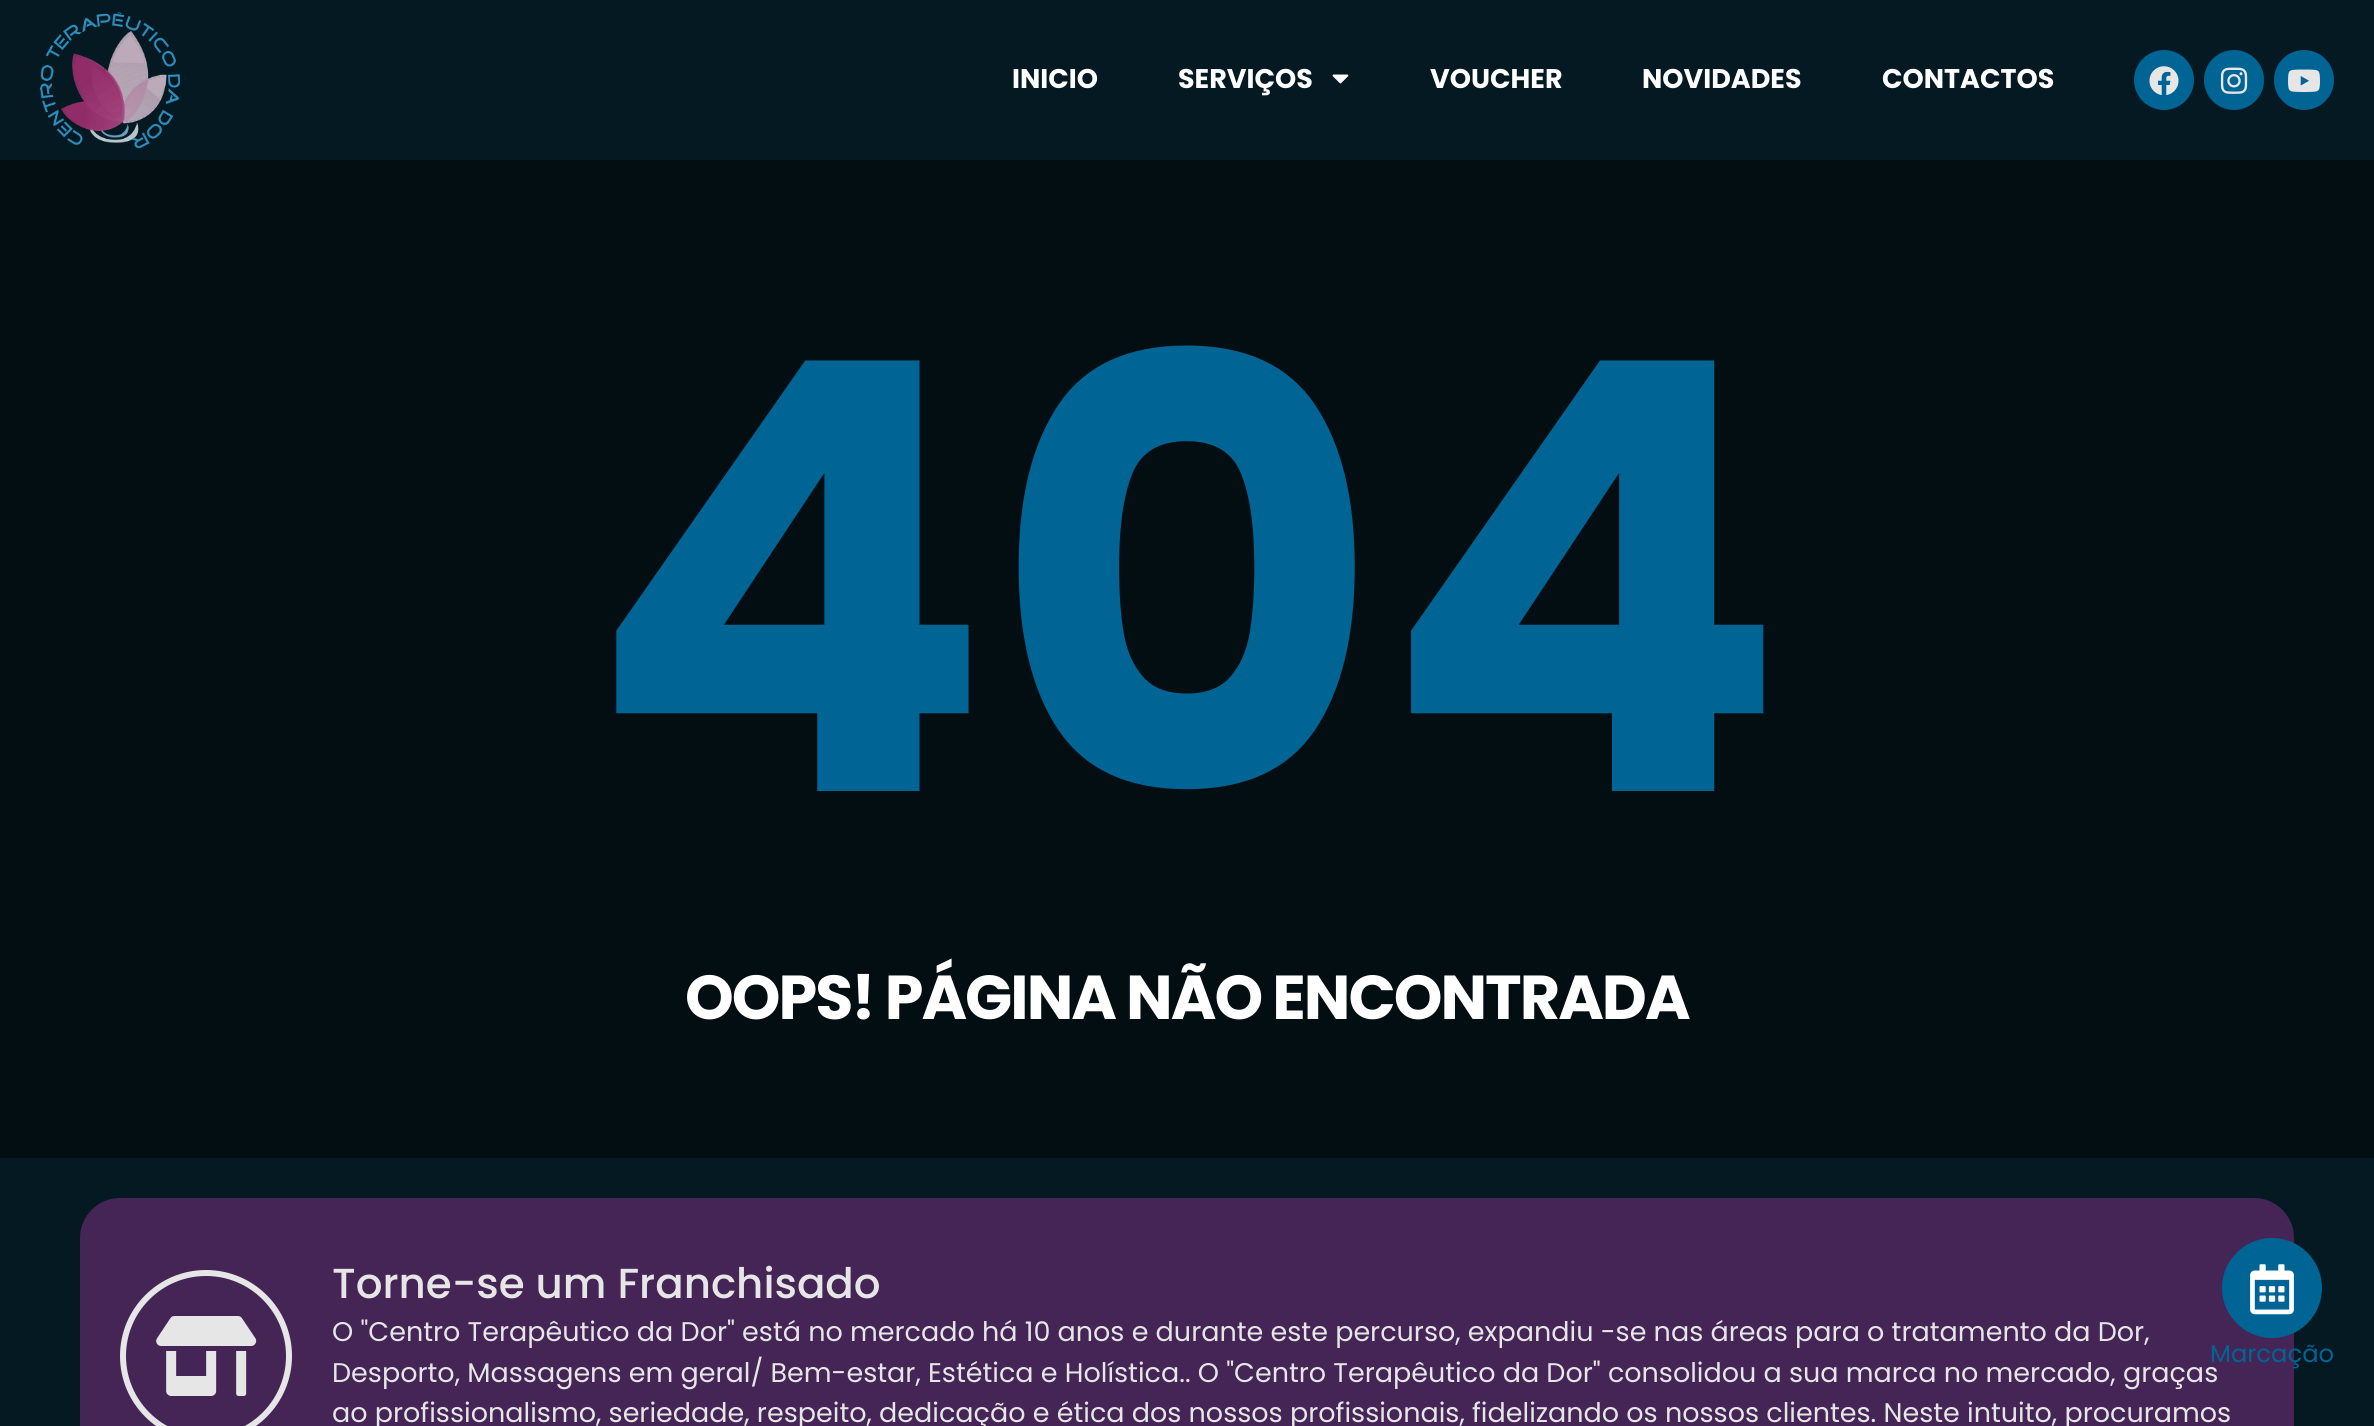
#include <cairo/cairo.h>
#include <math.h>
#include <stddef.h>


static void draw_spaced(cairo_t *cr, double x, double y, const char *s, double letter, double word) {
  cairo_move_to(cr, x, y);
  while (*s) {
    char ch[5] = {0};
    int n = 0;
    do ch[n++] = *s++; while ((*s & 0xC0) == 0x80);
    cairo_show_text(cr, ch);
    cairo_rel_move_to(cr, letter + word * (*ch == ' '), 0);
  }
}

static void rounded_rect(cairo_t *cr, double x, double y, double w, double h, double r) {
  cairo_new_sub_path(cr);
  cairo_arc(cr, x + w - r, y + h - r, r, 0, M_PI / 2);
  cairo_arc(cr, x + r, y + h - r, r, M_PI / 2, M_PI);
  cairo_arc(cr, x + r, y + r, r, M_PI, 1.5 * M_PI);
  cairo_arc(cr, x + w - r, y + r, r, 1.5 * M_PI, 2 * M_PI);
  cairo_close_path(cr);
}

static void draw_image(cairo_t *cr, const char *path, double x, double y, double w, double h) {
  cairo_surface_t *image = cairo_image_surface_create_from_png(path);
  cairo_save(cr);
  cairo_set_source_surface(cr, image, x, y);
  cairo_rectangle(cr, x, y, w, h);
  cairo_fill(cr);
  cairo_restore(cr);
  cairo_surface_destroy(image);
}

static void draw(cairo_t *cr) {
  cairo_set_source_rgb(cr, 3 / 255.0, 14 / 255.0, 19 / 255.0);
  cairo_paint(cr);
  cairo_set_source_rgb(cr, 5 / 255.0, 25 / 255.0, 35 / 255.0);
  cairo_rectangle(cr, 0, 0, 2374, 160);
  cairo_fill(cr);
  draw_image(cr, "images/1.png", 40, 12, 140, 136);
  draw_image(cr, "images/2.png", 1332, 74, 17, 10);
  cairo_set_source_rgb(cr, 0, 100 / 255.0, 148 / 255.0);
  cairo_arc(cr, 2164, 80, 30, 0, 2 * M_PI);
  cairo_fill(cr);
  draw_image(cr, "images/3.png", 2149, 66, 30, 30);
  cairo_arc(cr, 2234, 80, 30, 0, 2 * M_PI);
  cairo_fill(cr);
  draw_image(cr, "images/4.png", 2220, 67, 28, 27);
  cairo_arc(cr, 2304, 80, 30, 0, 2 * M_PI);
  cairo_fill(cr);
  draw_image(cr, "images/5.png", 2288, 69, 32, 23);
  cairo_set_source_rgb(cr, 5 / 255.0, 25 / 255.0, 35 / 255.0);
  cairo_rectangle(cr, 0, 1158, 2374, 268);
  cairo_fill(cr);
  cairo_set_source_rgb(cr, 68 / 255.0, 37 / 255.0, 86 / 255.0);
  rounded_rect(cr, 80, 1198, 2214, 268, 40);
  cairo_fill(cr);
  cairo_arc(cr, 206, 1356, 83, 0, 2 * M_PI);
  cairo_set_source_rgb(cr, 230 / 255.0, 230 / 255.0, 230 / 255.0);
  cairo_set_line_width(cr, 6);
  cairo_stroke(cr);
  draw_image(cr, "images/6.png", 156, 1316, 101, 80);
  cairo_set_source_rgb(cr, 0, 100 / 255.0, 148 / 255.0);
  cairo_arc(cr, 2272, 1288, 50, 0, 2 * M_PI);
  cairo_fill(cr);
  draw_image(cr, "images/7.png", 2250, 1264, 44, 51);
  cairo_select_font_face(cr, "Poppins", CAIRO_FONT_SLANT_NORMAL, CAIRO_FONT_WEIGHT_BOLD);
  cairo_set_font_size(cr, 27);
  cairo_set_source_rgb(cr, 1, 1, 1);
  cairo_move_to(cr, 1012, 88);
  cairo_show_text(cr, "INICIO");
  cairo_move_to(cr, 1178, 88);
  cairo_show_text(cr, "SERVIÇOS");
  cairo_move_to(cr, 1430, 88);
  cairo_show_text(cr, "VOUCHER");
  cairo_move_to(cr, 1642, 88);
  cairo_show_text(cr, "NOVIDADES");
  cairo_move_to(cr, 1882, 88);
  cairo_show_text(cr, "CONTACTOS");
  cairo_set_font_size(cr, 598);
  cairo_set_source_rgb(cr, 0, 100 / 255.0, 148 / 255.0);
  cairo_move_to(cr, 587, 791);
  cairo_show_text(cr, "404");
  cairo_set_font_size(cr, 62);
  cairo_set_source_rgb(cr, 1, 1, 1);
  draw_spaced(cr, 685, 1019, "OOPS! PÁGINA NÃO ENCONTRADA", -2, 0);
  cairo_select_font_face(cr, "Poppins Medium", CAIRO_FONT_SLANT_NORMAL, CAIRO_FONT_WEIGHT_NORMAL);
  cairo_set_font_size(cr, 42);
  cairo_set_source_rgb(cr, 230 / 255.0, 230 / 255.0, 230 / 255.0);
  cairo_move_to(cr, 332, 1298);
  cairo_show_text(cr, "Torne-se um Franchisado");
  cairo_select_font_face(cr, "Poppins", CAIRO_FONT_SLANT_NORMAL, CAIRO_FONT_WEIGHT_NORMAL);
  cairo_set_font_size(cr, 27);
  cairo_move_to(cr, 332, 1341);
  cairo_show_text(cr, "O \"Centro Terapêutico da Dor\" está no mercado há 10 anos e durante este percurso, expandiu -se nas áreas para o tratamento da Dor,");
  cairo_move_to(cr, 332, 1382);
  cairo_show_text(cr, "Desporto, Massagens em geral/ Bem-estar, Estética e Holística.. O \"Centro Terapêutico da Dor\" consolidou a sua marca no mercado, graças");
  cairo_move_to(cr, 332, 1422);
  cairo_show_text(cr, "ao profissionalismo, seriedade, respeito, dedicação e ética dos nossos profissionais, fidelizando os nossos clientes. Neste intuito, procuramos");
  cairo_set_font_size(cr, 24.25);
  cairo_set_source_rgb(cr, 0, 100 / 255.0, 148 / 255.0);
  cairo_move_to(cr, 2210, 1362);
  cairo_show_text(cr, "Marcação");
}

int main(void) {
  cairo_surface_t *surface = cairo_image_surface_create(CAIRO_FORMAT_RGB24, 2374, 1426);
  cairo_t *cr = cairo_create(surface);
  cairo_font_options_t *options = cairo_font_options_create();
  cairo_font_options_set_hint_metrics(options, CAIRO_HINT_METRICS_OFF);
  cairo_font_options_set_hint_style(options, CAIRO_HINT_STYLE_NONE);
  cairo_set_font_options(cr, options);
  cairo_set_miter_limit(cr, 4);
  draw(cr);
  cairo_surface_write_to_png(surface, "out.png");
  cairo_font_options_destroy(options);
  cairo_destroy(cr);
  cairo_surface_destroy(surface);
  return 0;
}
